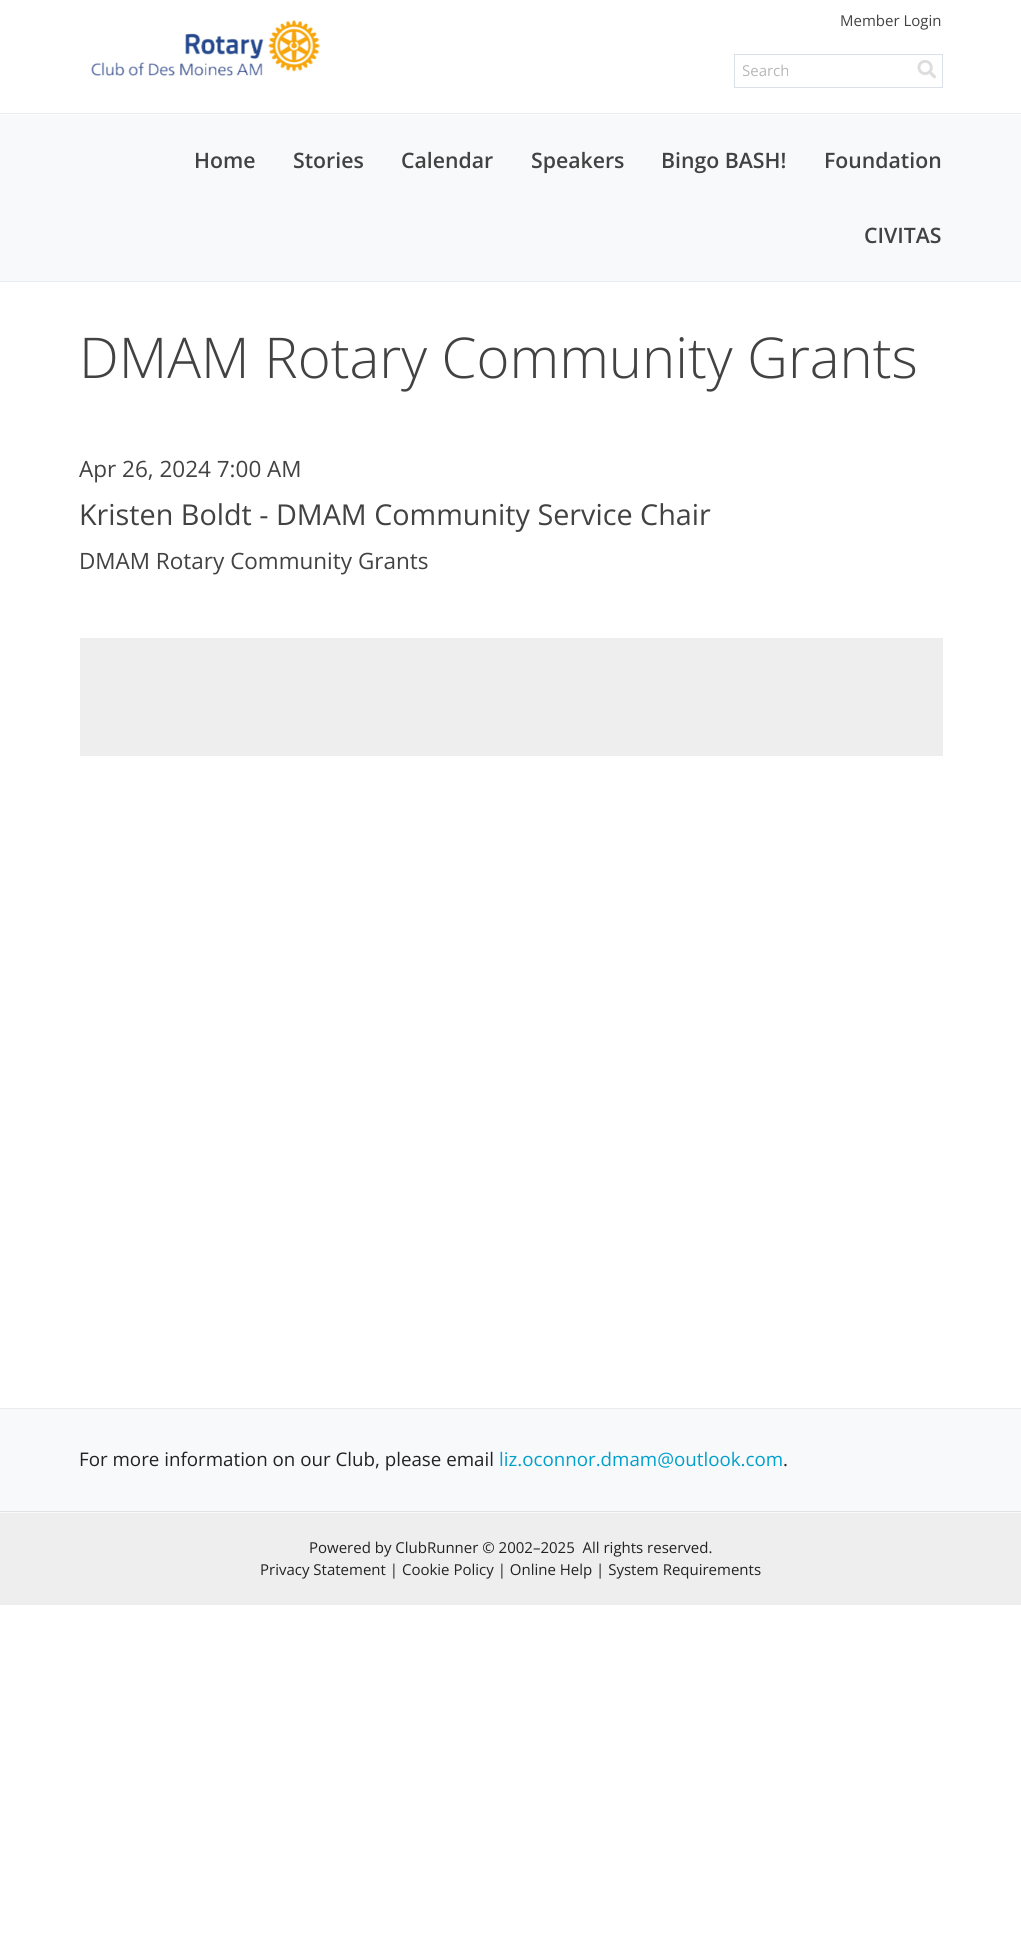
#include <cairo/cairo.h>
#include <math.h>
#include <stddef.h>


static void draw_image(cairo_t *cr, const char *path, double x, double y, double w, double h) {
  cairo_surface_t *image = cairo_image_surface_create_from_png(path);
  cairo_save(cr);
  cairo_set_source_surface(cr, image, x, y);
  cairo_rectangle(cr, x, y, w, h);
  cairo_fill(cr);
  cairo_restore(cr);
  cairo_surface_destroy(image);
}

static void draw(cairo_t *cr) {
  cairo_set_source_rgb(cr, 1, 1, 1);
  cairo_paint(cr);
  draw_image(cr, "images/1.png", 91, 20, 229, 56);
  cairo_rectangle(cr, 734.5, 54.5, 208, 33);
  cairo_set_source_rgb(cr, 218 / 255.0, 224 / 255.0, 229 / 255.0);
  cairo_set_line_width(cr, 1);
  cairo_stroke(cr);
  draw_image(cr, "images/2.png", 917, 60, 20, 19);
  cairo_set_source_rgb(cr, 233 / 255.0, 236 / 255.0, 239 / 255.0);
  cairo_rectangle(cr, 0, 113, 1021, 1);
  cairo_fill(cr);
  cairo_set_source_rgb(cr, 248 / 255.0, 249 / 255.0, 250 / 255.0);
  cairo_rectangle(cr, 0, 115, 1021, 166);
  cairo_fill(cr);
  cairo_set_source_rgb(cr, 233 / 255.0, 236 / 255.0, 239 / 255.0);
  cairo_rectangle(cr, 0, 281, 1021, 1);
  cairo_fill(cr);
  cairo_set_source_rgb(cr, 238 / 255.0, 238 / 255.0, 238 / 255.0);
  cairo_rectangle(cr, 80, 638, 863, 118);
  cairo_fill(cr);
  cairo_rectangle(cr, 0, 1513, 1021, 92);
  cairo_fill(cr);
  cairo_set_source_rgb(cr, 248 / 255.0, 249 / 255.0, 250 / 255.0);
  cairo_rectangle(cr, 0, 1409, 1021, 104);
  cairo_fill(cr);
  cairo_set_source_rgb(cr, 233 / 255.0, 236 / 255.0, 239 / 255.0);
  cairo_rectangle(cr, 0, 1408, 1021, 1);
  cairo_fill(cr);
  cairo_set_source_rgb(cr, 224 / 255.0, 226 / 255.0, 229 / 255.0);
  cairo_rectangle(cr, 0, 1511, 1021, 1);
  cairo_fill(cr);
  cairo_select_font_face(cr, "Open Sans", CAIRO_FONT_SLANT_NORMAL, CAIRO_FONT_WEIGHT_NORMAL);
  cairo_set_font_size(cr, 15);
  cairo_set_source_rgb(cr, 66 / 255.0, 66 / 255.0, 66 / 255.0);
  cairo_move_to(cr, 840, 26);
  cairo_show_text(cr, "Member Login");
  cairo_save(cr);
  cairo_rectangle(cr, 743, 60, 162, 21);
  cairo_clip(cr);
  cairo_set_source_rgb(cr, 183 / 255.0, 183 / 255.0, 183 / 255.0);
  cairo_move_to(cr, 742, 76);
  cairo_show_text(cr, "Search");
  cairo_restore(cr);
  cairo_select_font_face(cr, "Open Sans SemiBold", CAIRO_FONT_SLANT_NORMAL, CAIRO_FONT_WEIGHT_NORMAL);
  cairo_set_font_size(cr, 21.25);
  cairo_move_to(cr, 194, 168);
  cairo_show_text(cr, "Home");
  cairo_move_to(cr, 293, 168);
  cairo_show_text(cr, "Stories");
  cairo_move_to(cr, 401, 168);
  cairo_show_text(cr, "Calendar");
  cairo_move_to(cr, 531, 168);
  cairo_show_text(cr, "Speakers");
  cairo_move_to(cr, 661, 168);
  cairo_show_text(cr, "Bingo BASH!");
  cairo_move_to(cr, 824, 168);
  cairo_show_text(cr, "Foundation");
  cairo_move_to(cr, 864, 243);
  cairo_show_text(cr, "CIVITAS");
  cairo_select_font_face(cr, "Open Sans Light", CAIRO_FONT_SLANT_NORMAL, CAIRO_FONT_WEIGHT_NORMAL);
  cairo_set_font_size(cr, 56.25);
  cairo_move_to(cr, 79, 378);
  cairo_show_text(cr, "DMAM Rotary Community Grants");
  cairo_select_font_face(cr, "Open Sans", CAIRO_FONT_SLANT_NORMAL, CAIRO_FONT_WEIGHT_NORMAL);
  cairo_set_font_size(cr, 22.5);
  cairo_move_to(cr, 79, 477);
  cairo_show_text(cr, "Apr 26, 2024 7:00 AM");
  cairo_set_font_size(cr, 28.75);
  cairo_move_to(cr, 79, 525);
  cairo_show_text(cr, "Kristen Boldt - DMAM Community Service Chair");
  cairo_set_font_size(cr, 22.5);
  cairo_move_to(cr, 79, 569);
  cairo_show_text(cr, "DMAM Rotary Community Grants");
  cairo_set_font_size(cr, 18.75);
  cairo_set_source_rgb(cr, 34 / 255.0, 34 / 255.0, 34 / 255.0);
  cairo_move_to(cr, 79, 1466);
  cairo_show_text(cr, "For more information on our Club, please email");
  cairo_set_source_rgb(cr, 1 / 255.0, 159 / 255.0, 203 / 255.0);
  cairo_move_to(cr, 499, 1466);
  cairo_show_text(cr, "liz.oconnor.dmam@outlook.com");
  cairo_set_source_rgb(cr, 34 / 255.0, 34 / 255.0, 34 / 255.0);
  cairo_move_to(cr, 783, 1466);
  cairo_show_text(cr, ".");
  cairo_set_font_size(cr, 15);
  cairo_move_to(cr, 309, 1553);
  cairo_show_text(cr, "Powered by ClubRunner © 2002–2025  All rights reserved.");
  cairo_move_to(cr, 260, 1575);
  cairo_show_text(cr, "Privacy Statement | Cookie Policy | Online Help | System Requirements");
}

int main(void) {
  cairo_surface_t *surface = cairo_image_surface_create(CAIRO_FORMAT_RGB24, 1021, 1945);
  cairo_t *cr = cairo_create(surface);
  cairo_font_options_t *options = cairo_font_options_create();
  cairo_font_options_set_hint_metrics(options, CAIRO_HINT_METRICS_OFF);
  cairo_font_options_set_hint_style(options, CAIRO_HINT_STYLE_NONE);
  cairo_set_font_options(cr, options);
  cairo_set_miter_limit(cr, 4);
  draw(cr);
  cairo_surface_write_to_png(surface, "out.png");
  cairo_font_options_destroy(options);
  cairo_destroy(cr);
  cairo_surface_destroy(surface);
  return 0;
}
